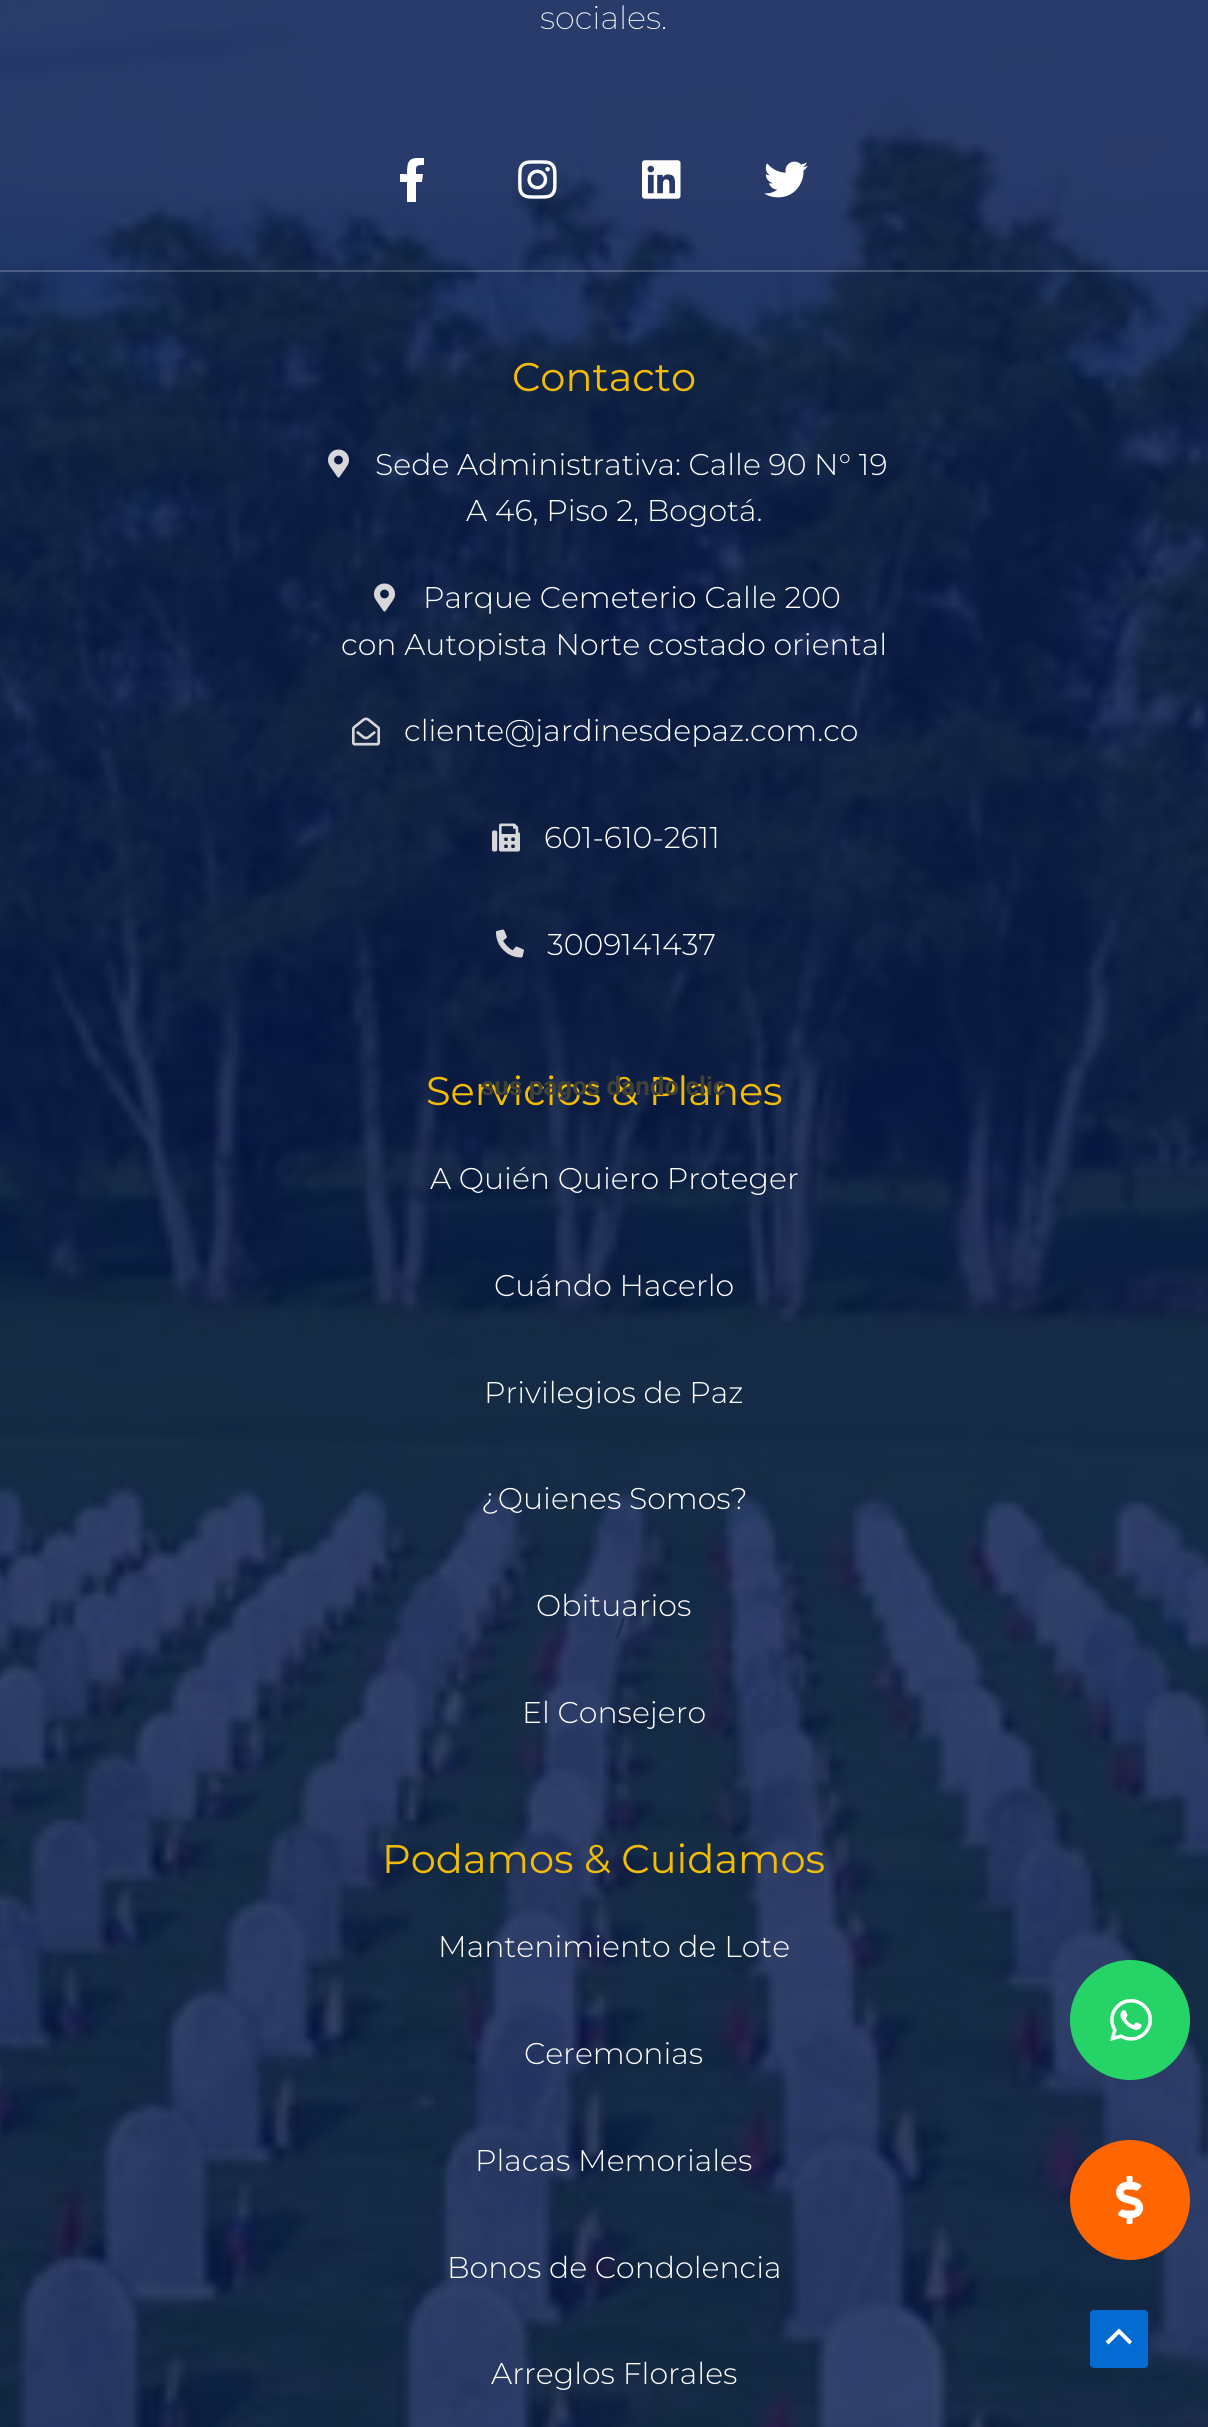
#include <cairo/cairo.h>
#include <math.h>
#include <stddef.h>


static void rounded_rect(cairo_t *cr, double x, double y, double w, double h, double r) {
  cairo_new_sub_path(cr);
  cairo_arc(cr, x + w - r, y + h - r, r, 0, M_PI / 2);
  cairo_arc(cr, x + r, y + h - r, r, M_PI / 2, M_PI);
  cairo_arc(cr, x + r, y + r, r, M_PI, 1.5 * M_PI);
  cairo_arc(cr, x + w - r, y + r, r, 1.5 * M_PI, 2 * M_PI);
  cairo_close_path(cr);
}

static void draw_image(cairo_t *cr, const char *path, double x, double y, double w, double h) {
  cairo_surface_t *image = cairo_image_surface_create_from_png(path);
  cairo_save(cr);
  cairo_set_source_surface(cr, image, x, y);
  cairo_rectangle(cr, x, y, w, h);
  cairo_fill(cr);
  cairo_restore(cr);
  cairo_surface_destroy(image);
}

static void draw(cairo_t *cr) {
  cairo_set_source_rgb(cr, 1, 1, 1);
  cairo_paint(cr);
  draw_image(cr, "images/1.png", 0, 0, 1208, 2427);
  cairo_set_source_rgba(cr, 1, 1, 1, 0.2);
  cairo_rectangle(cr, 0, 270, 1208, 2);
  cairo_fill(cr);
  cairo_save(cr);
  cairo_rectangle(cr, 50, 158, 1108, 52);
  cairo_clip(cr);
  cairo_set_source_rgb(cr, 1, 1, 1);
  cairo_new_path(cr);
  cairo_move_to(cr, 422, 182);
  cairo_line_to(cr, 416, 182);
  cairo_line_to(cr, 416, 202);
  cairo_line_to(cr, 407, 202);
  cairo_line_to(cr, 407, 182);
  cairo_line_to(cr, 400, 182);
  cairo_line_to(cr, 400, 174);
  cairo_line_to(cr, 407, 174);
  cairo_curve_to(cr, 407, 160, 409, 157, 424, 158);
  cairo_line_to(cr, 424, 165);
  cairo_curve_to(cr, 415, 165, 416, 166, 416, 174);
  cairo_line_to(cr, 423, 174);
  cairo_close_path(cr);
  cairo_fill(cr);
  cairo_restore(cr);
  draw_image(cr, "images/2.png", 518, 160, 39, 39);
  draw_image(cr, "images/3.png", 642, 160, 39, 39);
  draw_image(cr, "images/4.png", 764, 161, 44, 37);
  draw_image(cr, "images/5.png", 328, 449, 21, 29);
  draw_image(cr, "images/6.png", 374, 583, 21, 29);
  draw_image(cr, "images/7.png", 352, 717, 28, 29);
  draw_image(cr, "images/8.png", 492, 823, 28, 29);
  draw_image(cr, "images/9.png", 496, 929, 28, 29);
  cairo_set_source_rgb(cr, 37 / 255.0, 211 / 255.0, 102 / 255.0);
  cairo_arc(cr, 1130, 2020, 60, 0, 2 * M_PI);
  cairo_fill(cr);
  draw_image(cr, "images/10.png", 1110, 1999, 42, 42);
  cairo_set_source_rgb(cr, 1, 102 / 255.0, 0);
  cairo_arc(cr, 1130, 2200, 60, 0, 2 * M_PI);
  cairo_fill(cr);
  draw_image(cr, "images/11.png", 1116, 2176, 28, 48);
  cairo_set_source_rgb(cr, 4 / 255.0, 107 / 255.0, 210 / 255.0);
  rounded_rect(cr, 1090, 2310, 58, 58, 4);
  cairo_fill(cr);
  cairo_set_source_rgb(cr, 1, 1, 1);
  cairo_new_path(cr);
  cairo_move_to(cr, 1132, 2341.5);
  cairo_line_to(cr, 1119, 2328.5);
  cairo_line_to(cr, 1105.5, 2341.5);
  cairo_line_to(cr, 1108.5, 2344.5);
  cairo_line_to(cr, 1119, 2334);
  cairo_line_to(cr, 1129.5, 2344.5);
  cairo_close_path(cr);
  cairo_fill(cr);
  cairo_select_font_face(cr, "Montserrat Thin", CAIRO_FONT_SLANT_NORMAL, CAIRO_FONT_WEIGHT_NORMAL);
  cairo_set_font_size(cr, 32);
  cairo_move_to(cr, 540, 29);
  cairo_show_text(cr, "sociales.");
  cairo_select_font_face(cr, "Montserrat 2 Thin", CAIRO_FONT_SLANT_NORMAL, CAIRO_FONT_WEIGHT_NORMAL);
  cairo_set_font_size(cr, 40);
  cairo_set_source_rgb(cr, 243 / 255.0, 188 / 255.0, 4 / 255.0);
  cairo_move_to(cr, 512, 391);
  cairo_show_text(cr, "Contacto");
  cairo_select_font_face(cr, "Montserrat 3 Thin", CAIRO_FONT_SLANT_NORMAL, CAIRO_FONT_WEIGHT_NORMAL);
  cairo_set_font_size(cr, 30);
  cairo_set_source_rgb(cr, 1, 1, 1);
  cairo_move_to(cr, 375, 475);
  cairo_show_text(cr, "Sede Administrativa: Calle 90 N° 19");
  cairo_move_to(cr, 466, 521);
  cairo_show_text(cr, "A 46, Piso 2, Bogotá.");
  cairo_move_to(cr, 423, 608);
  cairo_show_text(cr, "Parque Cemeterio Calle 200");
  cairo_move_to(cr, 341, 655);
  cairo_show_text(cr, "con Autopista Norte costado oriental");
  cairo_move_to(cr, 404, 741);
  cairo_show_text(cr, "cliente@jardinesdepaz.com.co");
  cairo_move_to(cr, 544, 848);
  cairo_show_text(cr, "601-610-2611");
  cairo_move_to(cr, 547, 955);
  cairo_show_text(cr, "3009141437");
  cairo_select_font_face(cr, "Montserrat 2 Thin", CAIRO_FONT_SLANT_NORMAL, CAIRO_FONT_WEIGHT_NORMAL);
  cairo_set_font_size(cr, 40);
  cairo_set_source_rgb(cr, 243 / 255.0, 188 / 255.0, 4 / 255.0);
  cairo_move_to(cr, 426, 1105);
  cairo_show_text(cr, "Servicios & Planes");
  cairo_select_font_face(cr, "Montserrat 3 Thin", CAIRO_FONT_SLANT_NORMAL, CAIRO_FONT_WEIGHT_NORMAL);
  cairo_set_font_size(cr, 30);
  cairo_set_source_rgb(cr, 1, 1, 1);
  cairo_move_to(cr, 430, 1189);
  cairo_show_text(cr, "A Quién Quiero Proteger");
  cairo_move_to(cr, 494, 1296);
  cairo_show_text(cr, "Cuándo Hacerlo");
  cairo_move_to(cr, 484, 1403);
  cairo_show_text(cr, "Privilegios de Paz");
  cairo_move_to(cr, 481, 1509);
  cairo_show_text(cr, "¿Quienes Somos?");
  cairo_move_to(cr, 536, 1616);
  cairo_show_text(cr, "Obituarios");
  cairo_move_to(cr, 522, 1723);
  cairo_show_text(cr, "El Consejero");
  cairo_select_font_face(cr, "Montserrat 2 Thin", CAIRO_FONT_SLANT_NORMAL, CAIRO_FONT_WEIGHT_NORMAL);
  cairo_set_font_size(cr, 40);
  cairo_set_source_rgb(cr, 243 / 255.0, 188 / 255.0, 4 / 255.0);
  cairo_move_to(cr, 382, 1873);
  cairo_show_text(cr, "Podamos & Cuidamos");
  cairo_select_font_face(cr, "Montserrat 3 Thin", CAIRO_FONT_SLANT_NORMAL, CAIRO_FONT_WEIGHT_NORMAL);
  cairo_set_font_size(cr, 30);
  cairo_set_source_rgb(cr, 1, 1, 1);
  cairo_move_to(cr, 438, 1957);
  cairo_show_text(cr, "Mantenimiento de Lote");
  cairo_move_to(cr, 524, 2064);
  cairo_show_text(cr, "Ceremonias");
  cairo_move_to(cr, 475, 2171);
  cairo_show_text(cr, "Placas Memoriales");
  cairo_move_to(cr, 447, 2278);
  cairo_show_text(cr, "Bonos de Condolencia");
  cairo_move_to(cr, 491, 2384);
  cairo_show_text(cr, "Arreglos Florales");
  cairo_select_font_face(cr, "Roboto", CAIRO_FONT_SLANT_NORMAL, CAIRO_FONT_WEIGHT_BOLD);
  cairo_set_font_size(cr, 26);
  cairo_set_source_rgb(cr, 64 / 255.0, 65 / 255.0, 55 / 255.0);
  cairo_move_to(cr, 481, 1095);
  cairo_show_text(cr, "sus pagos dando clic");
  cairo_set_source_rgb(cr, 27 / 255.0, 45 / 255.0, 79 / 255.0);
  cairo_move_to(cr, 616, 1636);
  cairo_show_text(cr, "/");
}

int main(void) {
  cairo_surface_t *surface = cairo_image_surface_create(CAIRO_FORMAT_RGB24, 1208, 2427);
  cairo_t *cr = cairo_create(surface);
  cairo_font_options_t *options = cairo_font_options_create();
  cairo_font_options_set_hint_metrics(options, CAIRO_HINT_METRICS_OFF);
  cairo_font_options_set_hint_style(options, CAIRO_HINT_STYLE_NONE);
  cairo_set_font_options(cr, options);
  cairo_set_miter_limit(cr, 4);
  draw(cr);
  cairo_surface_write_to_png(surface, "out.png");
  cairo_font_options_destroy(options);
  cairo_destroy(cr);
  cairo_surface_destroy(surface);
  return 0;
}
